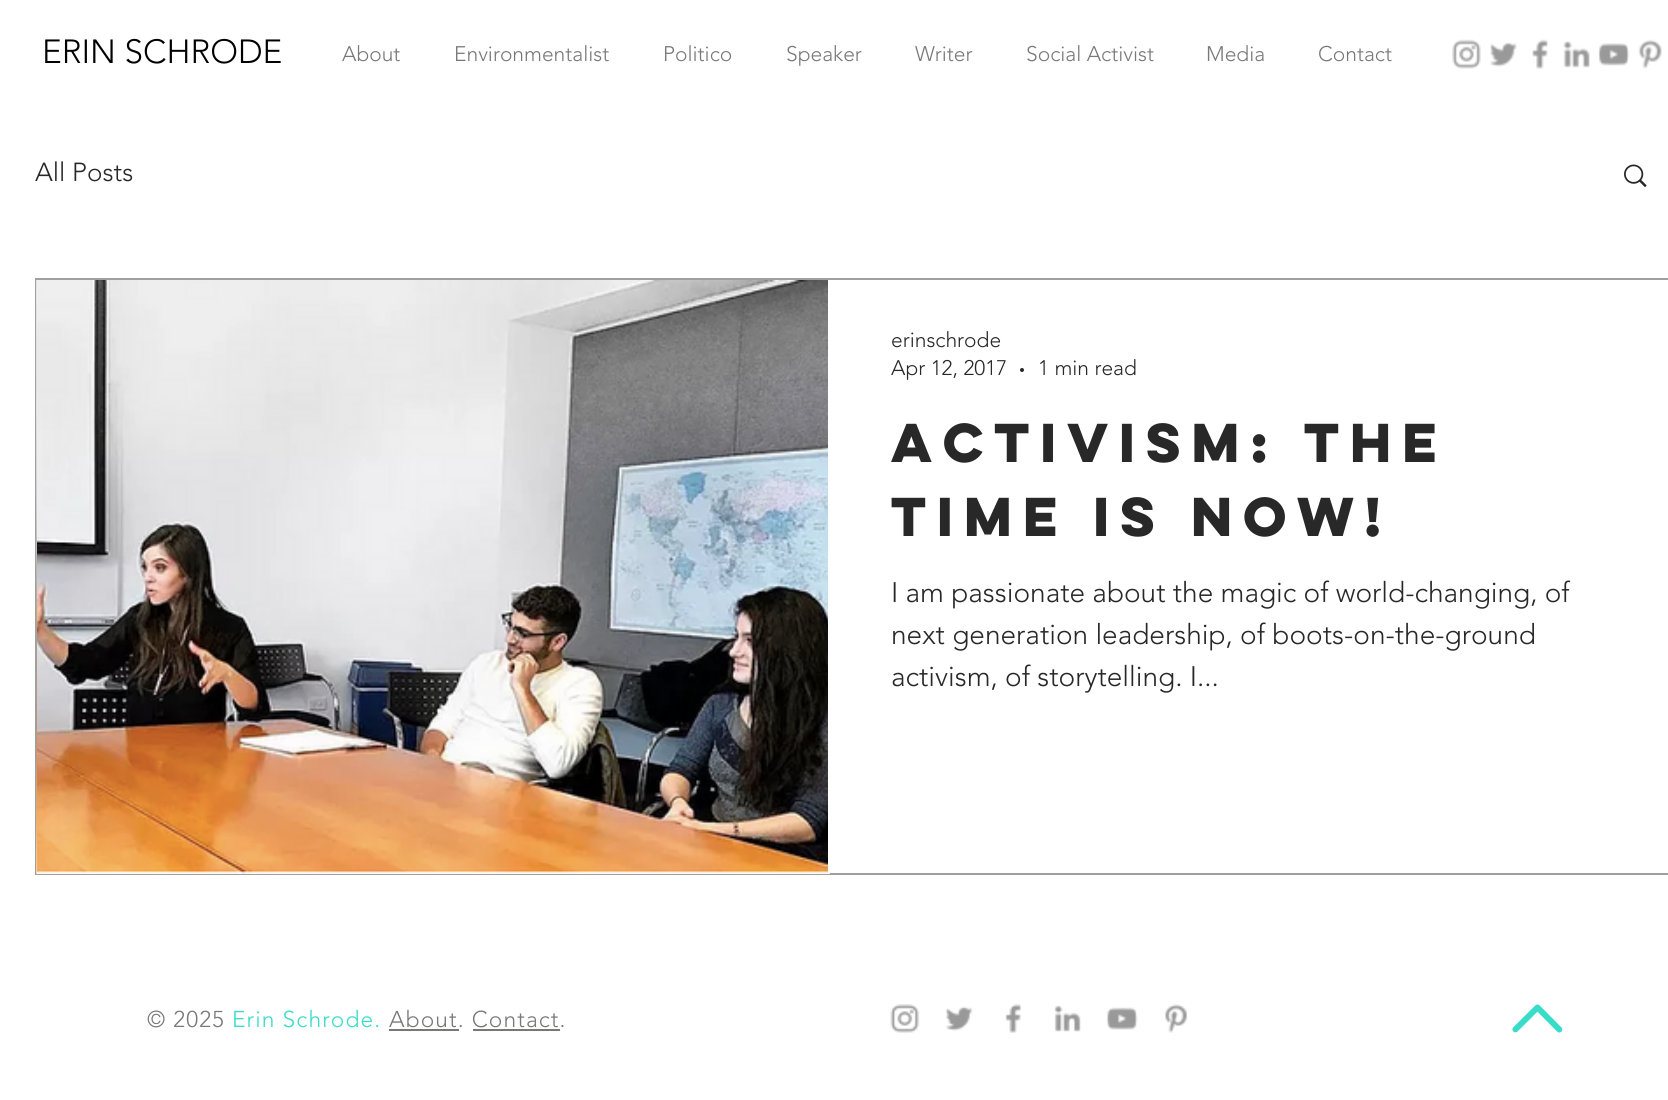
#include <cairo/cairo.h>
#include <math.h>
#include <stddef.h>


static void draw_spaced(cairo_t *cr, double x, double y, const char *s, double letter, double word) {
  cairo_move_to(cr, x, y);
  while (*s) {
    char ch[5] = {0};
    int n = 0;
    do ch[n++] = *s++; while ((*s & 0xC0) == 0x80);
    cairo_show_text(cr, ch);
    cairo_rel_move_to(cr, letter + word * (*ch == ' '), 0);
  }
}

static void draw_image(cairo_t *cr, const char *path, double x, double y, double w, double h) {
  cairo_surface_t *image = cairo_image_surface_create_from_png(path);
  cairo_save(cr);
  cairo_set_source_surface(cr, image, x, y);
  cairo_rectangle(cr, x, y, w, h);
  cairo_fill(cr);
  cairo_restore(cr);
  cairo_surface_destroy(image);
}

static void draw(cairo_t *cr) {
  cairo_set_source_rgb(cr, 1, 1, 1);
  cairo_paint(cr);
  draw_image(cr, "images/1.png", 1452, 39, 29, 30);
  draw_image(cr, "images/2.png", 1490, 42, 27, 25);
  draw_image(cr, "images/3.png", 1532, 39, 16, 30);
  draw_image(cr, "images/4.png", 1563, 41, 27, 27);
  draw_image(cr, "images/5.png", 1598, 43, 32, 23);
  draw_image(cr, "images/6.png", 1638, 39, 24, 30);
  draw_image(cr, "images/7.png", 1624, 164, 23, 23);
  cairo_rectangle(cr, 36, 279, 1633, 595);
  cairo_set_source_rgb(cr, 160 / 255.0, 160 / 255.0, 159 / 255.0);
  cairo_stroke(cr);
  draw_image(cr, "images/8.png", 36, 280, 1, 594);
  draw_image(cr, "images/9.png", 37, 280, 793, 594);
  cairo_set_source_rgb(cr, 1, 1, 1);
  cairo_rectangle(cr, 828, 280, 2, 593);
  cairo_fill(cr);
  cairo_set_source_rgb(cr, 40 / 255.0, 40 / 255.0, 40 / 255.0);
  cairo_arc(cr, 1022, 370, 2, 0, 2 * M_PI);
  cairo_fill(cr);
  cairo_set_source_rgb(cr, 120 / 255.0, 120 / 255.0, 119 / 255.0);
  cairo_rectangle(cr, 389, 1029, 70, 2);
  cairo_fill(cr);
  cairo_rectangle(cr, 473, 1029, 87, 2);
  cairo_fill(cr);
  draw_image(cr, "images/10.png", 890, 1004, 30, 29);
  draw_image(cr, "images/11.png", 945, 1006, 28, 25);
  draw_image(cr, "images/12.png", 1005, 1004, 16, 29);
  draw_image(cr, "images/13.png", 1054, 1005, 27, 27);
  draw_image(cr, "images/14.png", 1106, 1007, 32, 23);
  draw_image(cr, "images/15.png", 1165, 1004, 23, 29);
  draw_image(cr, "images/16.png", 1512, 1004, 51, 29);
  cairo_select_font_face(cr, "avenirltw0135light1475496 Light", CAIRO_FONT_SLANT_NORMAL, CAIRO_FONT_WEIGHT_NORMAL);
  cairo_set_font_size(cr, 33.25);
  cairo_set_source_rgb(cr, 0, 0, 0);
  cairo_move_to(cr, 42, 63);
  cairo_show_text(cr, "ERIN SCHRODE");
  cairo_set_font_size(cr, 21);
  cairo_set_source_rgb(cr, 120 / 255.0, 120 / 255.0, 119 / 255.0);
  cairo_move_to(cr, 342, 61);
  cairo_show_text(cr, "About");
  cairo_move_to(cr, 454, 61);
  cairo_show_text(cr, "Environmentalist");
  cairo_move_to(cr, 663, 61);
  cairo_show_text(cr, "Politico");
  cairo_move_to(cr, 786, 61);
  cairo_show_text(cr, "Speaker");
  cairo_move_to(cr, 915, 61);
  cairo_show_text(cr, "Writer");
  cairo_move_to(cr, 1026, 61);
  cairo_show_text(cr, "Social Activist");
  cairo_move_to(cr, 1206, 61);
  cairo_show_text(cr, "Media");
  cairo_move_to(cr, 1318, 61);
  cairo_show_text(cr, "Contact");
  cairo_set_font_size(cr, 26);
  cairo_set_source_rgb(cr, 40 / 255.0, 40 / 255.0, 40 / 255.0);
  cairo_move_to(cr, 35, 181);
  cairo_show_text(cr, "All Posts");
  cairo_set_font_size(cr, 21);
  cairo_move_to(cr, 891, 347);
  cairo_show_text(cr, "erinschrode");
  cairo_move_to(cr, 891, 375);
  cairo_show_text(cr, "Apr 12, 2017");
  cairo_move_to(cr, 1038, 375);
  cairo_show_text(cr, "1 min read");
  cairo_select_font_face(cr, "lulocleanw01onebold", CAIRO_FONT_SLANT_NORMAL, CAIRO_FONT_WEIGHT_BOLD);
  cairo_set_font_size(cr, 49);
  cairo_move_to(cr, 891, 462);
  cairo_show_text(cr, "Activism: The");
  cairo_move_to(cr, 891, 536);
  cairo_show_text(cr, "Time Is Now!");
  cairo_select_font_face(cr, "avenirltw0135light1475496 Light", CAIRO_FONT_SLANT_NORMAL, CAIRO_FONT_WEIGHT_NORMAL);
  cairo_set_font_size(cr, 28);
  cairo_move_to(cr, 891, 602);
  cairo_show_text(cr, "I am passionate about the magic of world-changing, of");
  cairo_move_to(cr, 891, 644);
  cairo_show_text(cr, "next generation leadership, of boots-on-the-ground");
  cairo_move_to(cr, 891, 686);
  cairo_show_text(cr, "activism, of storytelling. I...");
  cairo_set_font_size(cr, 22.75);
  cairo_set_source_rgb(cr, 120 / 255.0, 120 / 255.0, 119 / 255.0);
  draw_spaced(cr, 147, 1027, "© 2025", 1.1, 0);
  cairo_set_source_rgb(cr, 56 / 255.0, 220 / 255.0, 200 / 255.0);
  draw_spaced(cr, 232, 1027, "Erin Schrode.", 1.1, 0);
  cairo_set_source_rgb(cr, 120 / 255.0, 120 / 255.0, 119 / 255.0);
  draw_spaced(cr, 389, 1027, "About. Contact.", 1.1, 0);
}

int main(void) {
  cairo_surface_t *surface = cairo_image_surface_create(CAIRO_FORMAT_RGB24, 1668, 1100);
  cairo_t *cr = cairo_create(surface);
  cairo_font_options_t *options = cairo_font_options_create();
  cairo_font_options_set_hint_metrics(options, CAIRO_HINT_METRICS_OFF);
  cairo_font_options_set_hint_style(options, CAIRO_HINT_STYLE_NONE);
  cairo_set_font_options(cr, options);
  cairo_set_miter_limit(cr, 4);
  draw(cr);
  cairo_surface_write_to_png(surface, "out.png");
  cairo_font_options_destroy(options);
  cairo_destroy(cr);
  cairo_surface_destroy(surface);
  return 0;
}
